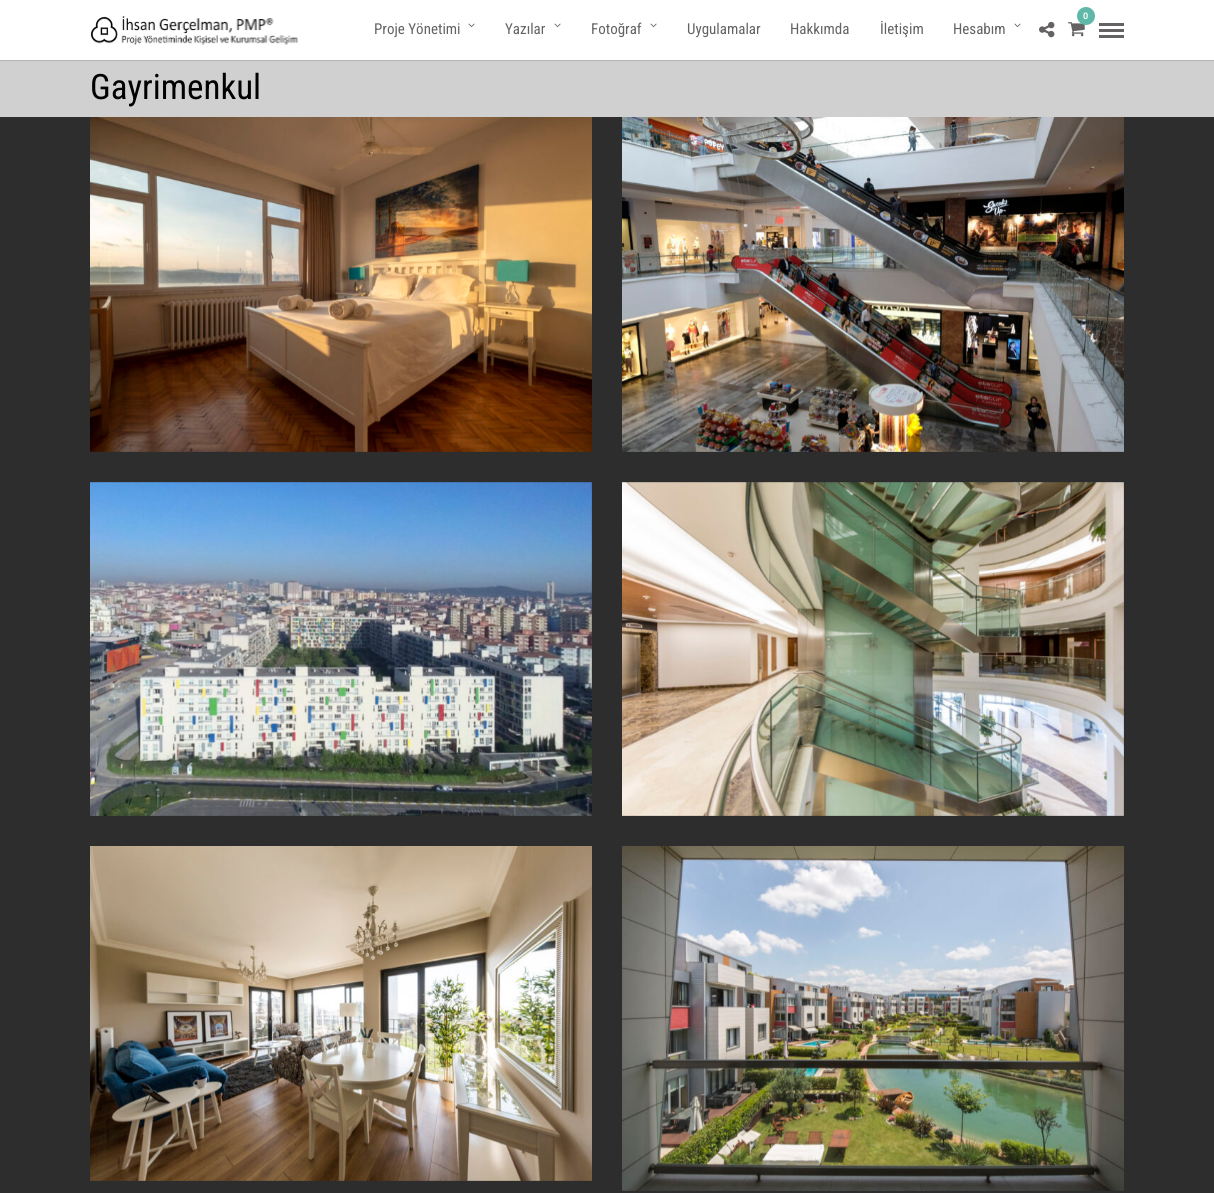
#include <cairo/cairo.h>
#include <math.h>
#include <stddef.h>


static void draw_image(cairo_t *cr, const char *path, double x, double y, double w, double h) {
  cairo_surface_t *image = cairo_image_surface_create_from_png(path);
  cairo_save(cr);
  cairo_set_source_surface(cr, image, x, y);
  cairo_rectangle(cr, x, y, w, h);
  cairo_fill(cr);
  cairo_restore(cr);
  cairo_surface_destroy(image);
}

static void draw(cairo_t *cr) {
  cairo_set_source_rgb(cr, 45 / 255.0, 45 / 255.0, 45 / 255.0);
  cairo_paint(cr);
  cairo_set_source_rgb(cr, 1, 1, 1);
  cairo_rectangle(cr, 0, 0, 1214, 60);
  cairo_fill(cr);
  cairo_set_source_rgb(cr, 182 / 255.0, 181 / 255.0, 181 / 255.0);
  cairo_rectangle(cr, 0, 60, 1214, 1);
  cairo_fill(cr);
  draw_image(cr, "images/1.png", 90, 16, 208, 29);
  draw_image(cr, "images/2.png", 1068, 22, 17, 15);
  cairo_set_source_rgb(cr, 96 / 255.0, 184 / 255.0, 168 / 255.0);
  cairo_arc(cr, 1086, 16, 9, 0, 2 * M_PI);
  cairo_fill(cr);
  draw_image(cr, "images/3.png", 1039, 21, 16, 17);
  cairo_set_source_rgb(cr, 100 / 255.0, 98 / 255.0, 98 / 255.0);
  cairo_rectangle(cr, 1099, 23, 25, 3);
  cairo_fill(cr);
  cairo_rectangle(cr, 1099, 29, 25, 3);
  cairo_fill(cr);
  cairo_rectangle(cr, 1099, 35, 25, 3);
  cairo_fill(cr);
  draw_image(cr, "images/4.png", 468, 23, 7, 5);
  draw_image(cr, "images/4.png", 554, 23, 7, 5);
  draw_image(cr, "images/4.png", 650, 23, 7, 5);
  draw_image(cr, "images/4.png", 1014, 23, 7, 5);
  cairo_set_source_rgb(cr, 208 / 255.0, 208 / 255.0, 208 / 255.0);
  cairo_rectangle(cr, 0, 61, 1214, 56);
  cairo_fill(cr);
  draw_image(cr, "images/5.png", 90, 117, 502, 335);
  draw_image(cr, "images/6.png", 622, 117, 502, 335);
  draw_image(cr, "images/7.png", 90, 482, 502, 334);
  draw_image(cr, "images/8.png", 622, 482, 502, 334);
  draw_image(cr, "images/9.png", 90, 846, 502, 335);
  draw_image(cr, "images/10.png", 622, 846, 502, 345);
  cairo_select_font_face(cr, "Roboto SemiBold", CAIRO_FONT_SLANT_NORMAL, CAIRO_FONT_WEIGHT_NORMAL);
  cairo_set_font_size(cr, 9);
  cairo_set_source_rgb(cr, 1, 1, 1);
  cairo_move_to(cr, 1083, 19);
  cairo_show_text(cr, "0");
  cairo_select_font_face(cr, "Roboto Condensed", CAIRO_FONT_SLANT_NORMAL, CAIRO_FONT_WEIGHT_NORMAL);
  cairo_set_font_size(cr, 15);
  cairo_set_source_rgb(cr, 100 / 255.0, 98 / 255.0, 98 / 255.0);
  cairo_move_to(cr, 374, 34);
  cairo_show_text(cr, "Proje Yönetimi");
  cairo_move_to(cr, 505, 34);
  cairo_show_text(cr, "Yazılar");
  cairo_move_to(cr, 591, 34);
  cairo_show_text(cr, "Fotoğraf");
  cairo_move_to(cr, 687, 34);
  cairo_show_text(cr, "Uygulamalar");
  cairo_move_to(cr, 790, 34);
  cairo_show_text(cr, "Hakkımda");
  cairo_move_to(cr, 880, 34);
  cairo_show_text(cr, "İletişim");
  cairo_move_to(cr, 953, 34);
  cairo_show_text(cr, "Hesabım");
  cairo_set_font_size(cr, 35);
  cairo_set_source_rgb(cr, 0, 0, 0);
  cairo_move_to(cr, 90, 99);
  cairo_show_text(cr, "Gayrimenkul");
}

int main(void) {
  cairo_surface_t *surface = cairo_image_surface_create(CAIRO_FORMAT_RGB24, 1214, 1193);
  cairo_t *cr = cairo_create(surface);
  cairo_font_options_t *options = cairo_font_options_create();
  cairo_font_options_set_hint_metrics(options, CAIRO_HINT_METRICS_OFF);
  cairo_font_options_set_hint_style(options, CAIRO_HINT_STYLE_NONE);
  cairo_set_font_options(cr, options);
  cairo_set_miter_limit(cr, 4);
  draw(cr);
  cairo_surface_write_to_png(surface, "out.png");
  cairo_font_options_destroy(options);
  cairo_destroy(cr);
  cairo_surface_destroy(surface);
  return 0;
}
